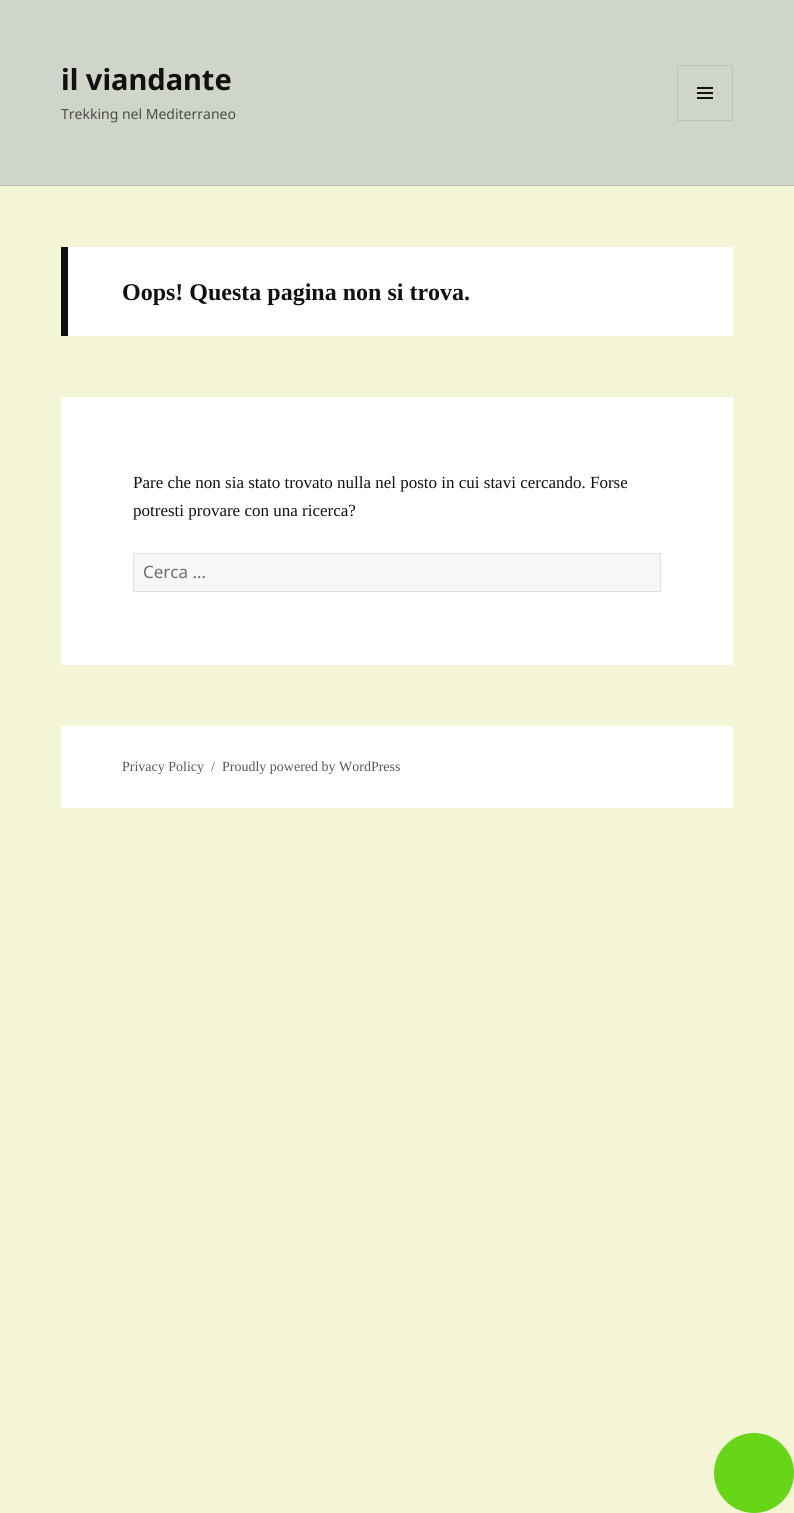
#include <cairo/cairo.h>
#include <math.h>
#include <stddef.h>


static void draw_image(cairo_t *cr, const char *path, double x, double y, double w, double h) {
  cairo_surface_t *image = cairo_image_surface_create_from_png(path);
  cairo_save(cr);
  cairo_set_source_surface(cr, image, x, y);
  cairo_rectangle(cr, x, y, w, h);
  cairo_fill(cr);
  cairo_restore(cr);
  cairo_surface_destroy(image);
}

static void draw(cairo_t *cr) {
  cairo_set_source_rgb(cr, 244 / 255.0, 244 / 255.0, 215 / 255.0);
  cairo_paint(cr);
  cairo_set_source_rgb(cr, 207 / 255.0, 214 / 255.0, 201 / 255.0);
  cairo_rectangle(cr, 0, 0, 794, 185);
  cairo_fill(cr);
  cairo_set_source_rgb(cr, 188 / 255.0, 194 / 255.0, 183 / 255.0);
  cairo_rectangle(cr, 0, 185, 794, 1);
  cairo_fill(cr);
  cairo_rectangle(cr, 677.5, 65.5, 55, 55);
  cairo_set_line_width(cr, 1);
  cairo_stroke(cr);
  draw_image(cr, "images/1.png", 697, 87, 16, 12);
  cairo_set_source_rgb(cr, 1, 1, 1);
  cairo_rectangle(cr, 68, 247, 665, 89);
  cairo_fill(cr);
  cairo_set_source_rgb(cr, 17 / 255.0, 17 / 255.0, 17 / 255.0);
  cairo_rectangle(cr, 61, 247, 7, 89);
  cairo_fill(cr);
  cairo_set_source_rgb(cr, 1, 1, 1);
  cairo_rectangle(cr, 61, 397, 672, 268);
  cairo_fill(cr);
  cairo_set_source_rgb(cr, 247 / 255.0, 247 / 255.0, 247 / 255.0);
  cairo_rectangle(cr, 133.5, 553.5, 527, 38);
  cairo_fill_preserve(cr);
  cairo_set_source_rgb(cr, 224 / 255.0, 224 / 255.0, 224 / 255.0);
  cairo_stroke(cr);
  cairo_set_source_rgb(cr, 1, 1, 1);
  cairo_rectangle(cr, 61, 726, 672, 82);
  cairo_fill(cr);
  cairo_set_source_rgb(cr, 102 / 255.0, 214 / 255.0, 23 / 255.0);
  cairo_new_path(cr);
  cairo_move_to(cr, 754, 1433);
  cairo_curve_to(cr, 776, 1433, 794, 1451, 794, 1473);
  cairo_curve_to(cr, 794, 1495, 776, 1513, 754, 1513);
  cairo_curve_to(cr, 732, 1513, 714, 1495, 714, 1473);
  cairo_curve_to(cr, 714, 1451, 732, 1433, 754, 1433);
  cairo_close_path(cr);
  cairo_fill(cr);
  cairo_select_font_face(cr, "Noto Sans", CAIRO_FONT_SLANT_NORMAL, CAIRO_FONT_WEIGHT_BOLD);
  cairo_set_font_size(cr, 29);
  cairo_set_source_rgb(cr, 17 / 255.0, 17 / 255.0, 17 / 255.0);
  cairo_move_to(cr, 61, 90);
  cairo_show_text(cr, "il viandante");
  cairo_select_font_face(cr, "Noto Sans", CAIRO_FONT_SLANT_NORMAL, CAIRO_FONT_WEIGHT_NORMAL);
  cairo_set_font_size(cr, 14);
  cairo_set_source_rgb(cr, 74 / 255.0, 76 / 255.0, 72 / 255.0);
  cairo_move_to(cr, 61, 119);
  cairo_show_text(cr, "Trekking nel Mediterraneo");
  cairo_select_font_face(cr, "Liberation Serif", CAIRO_FONT_SLANT_NORMAL, CAIRO_FONT_WEIGHT_BOLD);
  cairo_set_font_size(cr, 24);
  cairo_set_source_rgb(cr, 17 / 255.0, 17 / 255.0, 17 / 255.0);
  cairo_move_to(cr, 122, 300);
  cairo_show_text(cr, "Oops! Questa pagina non si trova.");
  cairo_select_font_face(cr, "Liberation Serif", CAIRO_FONT_SLANT_NORMAL, CAIRO_FONT_WEIGHT_NORMAL);
  cairo_set_font_size(cr, 17);
  cairo_move_to(cr, 133, 488);
  cairo_show_text(cr, "Pare che non sia stato trovato nulla nel posto in cui stavi cercando. Forse");
  cairo_move_to(cr, 133, 516);
  cairo_show_text(cr, "potresti provare con una ricerca?");
  cairo_select_font_face(cr, "Noto Sans", CAIRO_FONT_SLANT_NORMAL, CAIRO_FONT_WEIGHT_NORMAL);
  cairo_set_source_rgb(cr, 110 / 255.0, 110 / 255.0, 110 / 255.0);
  cairo_move_to(cr, 143, 578);
  cairo_show_text(cr, "Cerca …");
  cairo_select_font_face(cr, "Liberation Serif", CAIRO_FONT_SLANT_NORMAL, CAIRO_FONT_WEIGHT_NORMAL);
  cairo_set_font_size(cr, 14);
  cairo_set_source_rgb(cr, 88 / 255.0, 88 / 255.0, 88 / 255.0);
  cairo_move_to(cr, 122, 771);
  cairo_show_text(cr, "Privacy Policy");
  cairo_move_to(cr, 211, 771);
  cairo_show_text(cr, "/");
  cairo_move_to(cr, 222, 771);
  cairo_show_text(cr, "Proudly powered by WordPress");
}

int main(void) {
  cairo_surface_t *surface = cairo_image_surface_create(CAIRO_FORMAT_RGB24, 794, 1513);
  cairo_t *cr = cairo_create(surface);
  cairo_font_options_t *options = cairo_font_options_create();
  cairo_font_options_set_hint_metrics(options, CAIRO_HINT_METRICS_OFF);
  cairo_font_options_set_hint_style(options, CAIRO_HINT_STYLE_NONE);
  cairo_set_font_options(cr, options);
  cairo_set_miter_limit(cr, 4);
  draw(cr);
  cairo_surface_write_to_png(surface, "out.png");
  cairo_font_options_destroy(options);
  cairo_destroy(cr);
  cairo_surface_destroy(surface);
  return 0;
}
